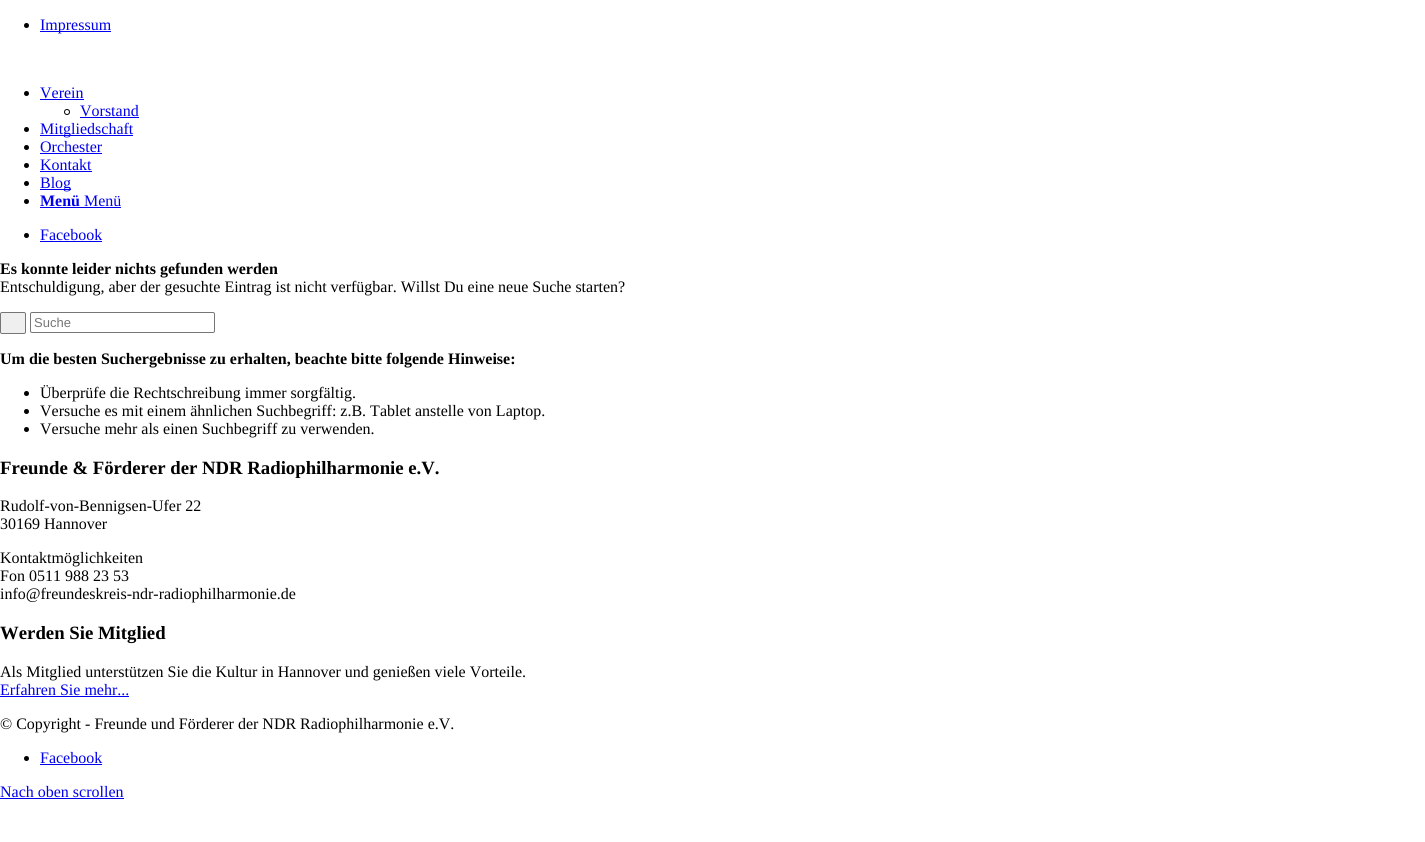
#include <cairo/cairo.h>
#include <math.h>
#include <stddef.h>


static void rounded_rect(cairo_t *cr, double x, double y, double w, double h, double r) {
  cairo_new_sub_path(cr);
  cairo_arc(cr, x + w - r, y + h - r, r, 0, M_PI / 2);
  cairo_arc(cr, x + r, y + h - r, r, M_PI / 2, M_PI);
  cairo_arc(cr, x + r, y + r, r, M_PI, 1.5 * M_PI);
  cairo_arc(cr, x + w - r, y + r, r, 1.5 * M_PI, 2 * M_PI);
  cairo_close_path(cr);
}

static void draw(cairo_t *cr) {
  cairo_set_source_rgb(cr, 1, 1, 1);
  cairo_paint(cr);
  cairo_set_source_rgb(cr, 0, 0, 0);
  cairo_arc(cr, 26.5, 25.5, 2.5, 0, 2 * M_PI);
  cairo_fill(cr);
  cairo_set_source_rgb(cr, 0, 0, 238 / 255.0);
  cairo_rectangle(cr, 40, 31, 71, 1);
  cairo_fill(cr);
  cairo_set_source_rgb(cr, 0, 0, 0);
  cairo_arc(cr, 26.5, 93.5, 2.5, 0, 2 * M_PI);
  cairo_fill(cr);
  cairo_set_source_rgb(cr, 0, 0, 238 / 255.0);
  cairo_rectangle(cr, 40, 99, 44, 1);
  cairo_fill(cr);
  cairo_arc(cr, 67, 112, 2.5, 0, 2 * M_PI);
  cairo_set_source_rgb(cr, 0, 0, 0);
  cairo_set_line_width(cr, 1);
  cairo_stroke(cr);
  cairo_set_source_rgb(cr, 0, 0, 238 / 255.0);
  cairo_rectangle(cr, 80, 117, 59, 1);
  cairo_fill(cr);
  cairo_set_source_rgb(cr, 0, 0, 0);
  cairo_arc(cr, 26.5, 129.5, 2.5, 0, 2 * M_PI);
  cairo_fill(cr);
  cairo_set_source_rgb(cr, 0, 0, 238 / 255.0);
  cairo_rectangle(cr, 40, 135, 93, 1);
  cairo_fill(cr);
  cairo_set_source_rgb(cr, 0, 0, 0);
  cairo_arc(cr, 26.5, 147.5, 2.5, 0, 2 * M_PI);
  cairo_fill(cr);
  cairo_set_source_rgb(cr, 0, 0, 238 / 255.0);
  cairo_rectangle(cr, 40, 153, 62, 1);
  cairo_fill(cr);
  cairo_set_source_rgb(cr, 0, 0, 0);
  cairo_arc(cr, 26.5, 165.5, 2.5, 0, 2 * M_PI);
  cairo_fill(cr);
  cairo_set_source_rgb(cr, 0, 0, 238 / 255.0);
  cairo_rectangle(cr, 40, 171, 52, 1);
  cairo_fill(cr);
  cairo_set_source_rgb(cr, 0, 0, 0);
  cairo_arc(cr, 26.5, 183.5, 2.5, 0, 2 * M_PI);
  cairo_fill(cr);
  cairo_set_source_rgb(cr, 0, 0, 238 / 255.0);
  cairo_rectangle(cr, 40, 189, 31, 1);
  cairo_fill(cr);
  cairo_set_source_rgb(cr, 0, 0, 0);
  cairo_arc(cr, 26.5, 201.5, 2.5, 0, 2 * M_PI);
  cairo_fill(cr);
  cairo_set_source_rgb(cr, 0, 0, 238 / 255.0);
  cairo_rectangle(cr, 40, 207, 81, 1);
  cairo_fill(cr);
  cairo_set_source_rgb(cr, 0, 0, 0);
  cairo_arc(cr, 26.5, 235.5, 2.5, 0, 2 * M_PI);
  cairo_fill(cr);
  cairo_set_source_rgb(cr, 0, 0, 238 / 255.0);
  cairo_rectangle(cr, 40, 241, 62, 1);
  cairo_fill(cr);
  cairo_set_source_rgb(cr, 239 / 255.0, 239 / 255.0, 239 / 255.0);
  rounded_rect(cr, 0.5, 312.5, 25, 21, 1.5);
  cairo_fill_preserve(cr);
  cairo_set_source_rgb(cr, 118 / 255.0, 118 / 255.0, 118 / 255.0);
  cairo_stroke(cr);
  rounded_rect(cr, 30.5, 312.5, 184, 20, 1.5);
  cairo_stroke(cr);
  cairo_set_source_rgb(cr, 0, 0, 0);
  cairo_arc(cr, 26.5, 393.5, 2.5, 0, 2 * M_PI);
  cairo_fill(cr);
  cairo_arc(cr, 26.5, 411.5, 2.5, 0, 2 * M_PI);
  cairo_fill(cr);
  cairo_arc(cr, 26.5, 429.5, 2.5, 0, 2 * M_PI);
  cairo_fill(cr);
  cairo_set_source_rgb(cr, 0, 0, 238 / 255.0);
  cairo_rectangle(cr, 0, 696, 129, 1);
  cairo_fill(cr);
  cairo_set_source_rgb(cr, 0, 0, 0);
  cairo_arc(cr, 26.5, 758.5, 2.5, 0, 2 * M_PI);
  cairo_fill(cr);
  cairo_set_source_rgb(cr, 0, 0, 238 / 255.0);
  cairo_rectangle(cr, 40, 764, 62, 1);
  cairo_fill(cr);
  cairo_rectangle(cr, 0, 798, 124, 1);
  cairo_fill(cr);
  cairo_select_font_face(cr, "Liberation Serif", CAIRO_FONT_SLANT_NORMAL, CAIRO_FONT_WEIGHT_NORMAL);
  cairo_set_font_size(cr, 16);
  cairo_move_to(cr, 40, 30);
  cairo_show_text(cr, "Impressum");
  cairo_move_to(cr, 40, 98);
  cairo_show_text(cr, "Verein");
  cairo_move_to(cr, 80, 116);
  cairo_show_text(cr, "Vorstand");
  cairo_move_to(cr, 40, 134);
  cairo_show_text(cr, "Mitgliedschaft");
  cairo_move_to(cr, 40, 152);
  cairo_show_text(cr, "Orchester");
  cairo_move_to(cr, 40, 170);
  cairo_show_text(cr, "Kontakt");
  cairo_move_to(cr, 40, 188);
  cairo_show_text(cr, "Blog");
  cairo_select_font_face(cr, "Liberation Serif", CAIRO_FONT_SLANT_NORMAL, CAIRO_FONT_WEIGHT_BOLD);
  cairo_move_to(cr, 40, 206);
  cairo_show_text(cr, "Menü");
  cairo_select_font_face(cr, "Liberation Serif", CAIRO_FONT_SLANT_NORMAL, CAIRO_FONT_WEIGHT_NORMAL);
  cairo_move_to(cr, 84, 206);
  cairo_show_text(cr, "Menü");
  cairo_move_to(cr, 40, 240);
  cairo_show_text(cr, "Facebook");
  cairo_select_font_face(cr, "Liberation Serif", CAIRO_FONT_SLANT_NORMAL, CAIRO_FONT_WEIGHT_BOLD);
  cairo_set_source_rgb(cr, 0, 0, 0);
  cairo_move_to(cr, 0, 274);
  cairo_show_text(cr, "Es konnte leider nichts gefunden werden");
  cairo_select_font_face(cr, "Liberation Serif", CAIRO_FONT_SLANT_NORMAL, CAIRO_FONT_WEIGHT_NORMAL);
  cairo_move_to(cr, 0, 292);
  cairo_show_text(cr, "Entschuldigung, aber der gesuchte Eintrag ist nicht verfügbar. Willst Du eine neue Suche starten?");
  cairo_select_font_face(cr, "Liberation Sans", CAIRO_FONT_SLANT_NORMAL, CAIRO_FONT_WEIGHT_NORMAL);
  cairo_set_font_size(cr, 13);
  cairo_set_source_rgb(cr, 117 / 255.0, 117 / 255.0, 117 / 255.0);
  cairo_move_to(cr, 34, 327);
  cairo_show_text(cr, "Suche");
  cairo_select_font_face(cr, "Liberation Serif", CAIRO_FONT_SLANT_NORMAL, CAIRO_FONT_WEIGHT_BOLD);
  cairo_set_font_size(cr, 16);
  cairo_set_source_rgb(cr, 0, 0, 0);
  cairo_move_to(cr, 0, 364);
  cairo_show_text(cr, "Um die besten Suchergebnisse zu erhalten, beachte bitte folgende Hinweise:");
  cairo_select_font_face(cr, "Liberation Serif", CAIRO_FONT_SLANT_NORMAL, CAIRO_FONT_WEIGHT_NORMAL);
  cairo_move_to(cr, 40, 398);
  cairo_show_text(cr, "Überprüfe die Rechtschreibung immer sorgfältig.");
  cairo_move_to(cr, 40, 416);
  cairo_show_text(cr, "Versuche es mit einem ähnlichen Suchbegriff: z.B. Tablet anstelle von Laptop.");
  cairo_move_to(cr, 40, 434);
  cairo_show_text(cr, "Versuche mehr als einen Suchbegriff zu verwenden.");
  cairo_select_font_face(cr, "Liberation Serif", CAIRO_FONT_SLANT_NORMAL, CAIRO_FONT_WEIGHT_BOLD);
  cairo_set_font_size(cr, 18.75);
  cairo_move_to(cr, 0, 474);
  cairo_show_text(cr, "Freunde & Förderer der NDR Radiophilharmonie e.V.");
  cairo_select_font_face(cr, "Liberation Serif", CAIRO_FONT_SLANT_NORMAL, CAIRO_FONT_WEIGHT_NORMAL);
  cairo_set_font_size(cr, 16);
  cairo_move_to(cr, 0, 511);
  cairo_show_text(cr, "Rudolf-von-Bennigsen-Ufer 22");
  cairo_move_to(cr, 0, 529);
  cairo_show_text(cr, "30169 Hannover");
  cairo_move_to(cr, 0, 563);
  cairo_show_text(cr, "Kontaktmöglichkeiten");
  cairo_move_to(cr, 0, 581);
  cairo_show_text(cr, "Fon 0511 988 23 53");
  cairo_move_to(cr, 0, 599);
  cairo_show_text(cr, "info@freundeskreis-ndr-radiophilharmonie.de");
  cairo_select_font_face(cr, "Liberation Serif", CAIRO_FONT_SLANT_NORMAL, CAIRO_FONT_WEIGHT_BOLD);
  cairo_set_font_size(cr, 18.75);
  cairo_move_to(cr, 0, 639);
  cairo_show_text(cr, "Werden Sie Mitglied");
  cairo_select_font_face(cr, "Liberation Serif", CAIRO_FONT_SLANT_NORMAL, CAIRO_FONT_WEIGHT_NORMAL);
  cairo_set_font_size(cr, 16);
  cairo_move_to(cr, 0, 677);
  cairo_show_text(cr, "Als Mitglied unterstützen Sie die Kultur in Hannover und genießen viele Vorteile.");
  cairo_set_source_rgb(cr, 0, 0, 238 / 255.0);
  cairo_move_to(cr, 0, 695);
  cairo_show_text(cr, "Erfahren Sie mehr...");
  cairo_set_source_rgb(cr, 0, 0, 0);
  cairo_move_to(cr, 0, 729);
  cairo_show_text(cr, "© Copyright - Freunde und Förderer der NDR Radiophilharmonie e.V.");
  cairo_set_source_rgb(cr, 0, 0, 238 / 255.0);
  cairo_move_to(cr, 40, 763);
  cairo_show_text(cr, "Facebook");
  cairo_move_to(cr, 0, 797);
  cairo_show_text(cr, "Nach oben scrollen");
}

int main(void) {
  cairo_surface_t *surface = cairo_image_surface_create(CAIRO_FORMAT_RGB24, 1425, 842);
  cairo_t *cr = cairo_create(surface);
  cairo_font_options_t *options = cairo_font_options_create();
  cairo_font_options_set_hint_metrics(options, CAIRO_HINT_METRICS_OFF);
  cairo_font_options_set_hint_style(options, CAIRO_HINT_STYLE_NONE);
  cairo_set_font_options(cr, options);
  cairo_set_miter_limit(cr, 4);
  draw(cr);
  cairo_surface_write_to_png(surface, "out.png");
  cairo_font_options_destroy(options);
  cairo_destroy(cr);
  cairo_surface_destroy(surface);
  return 0;
}
